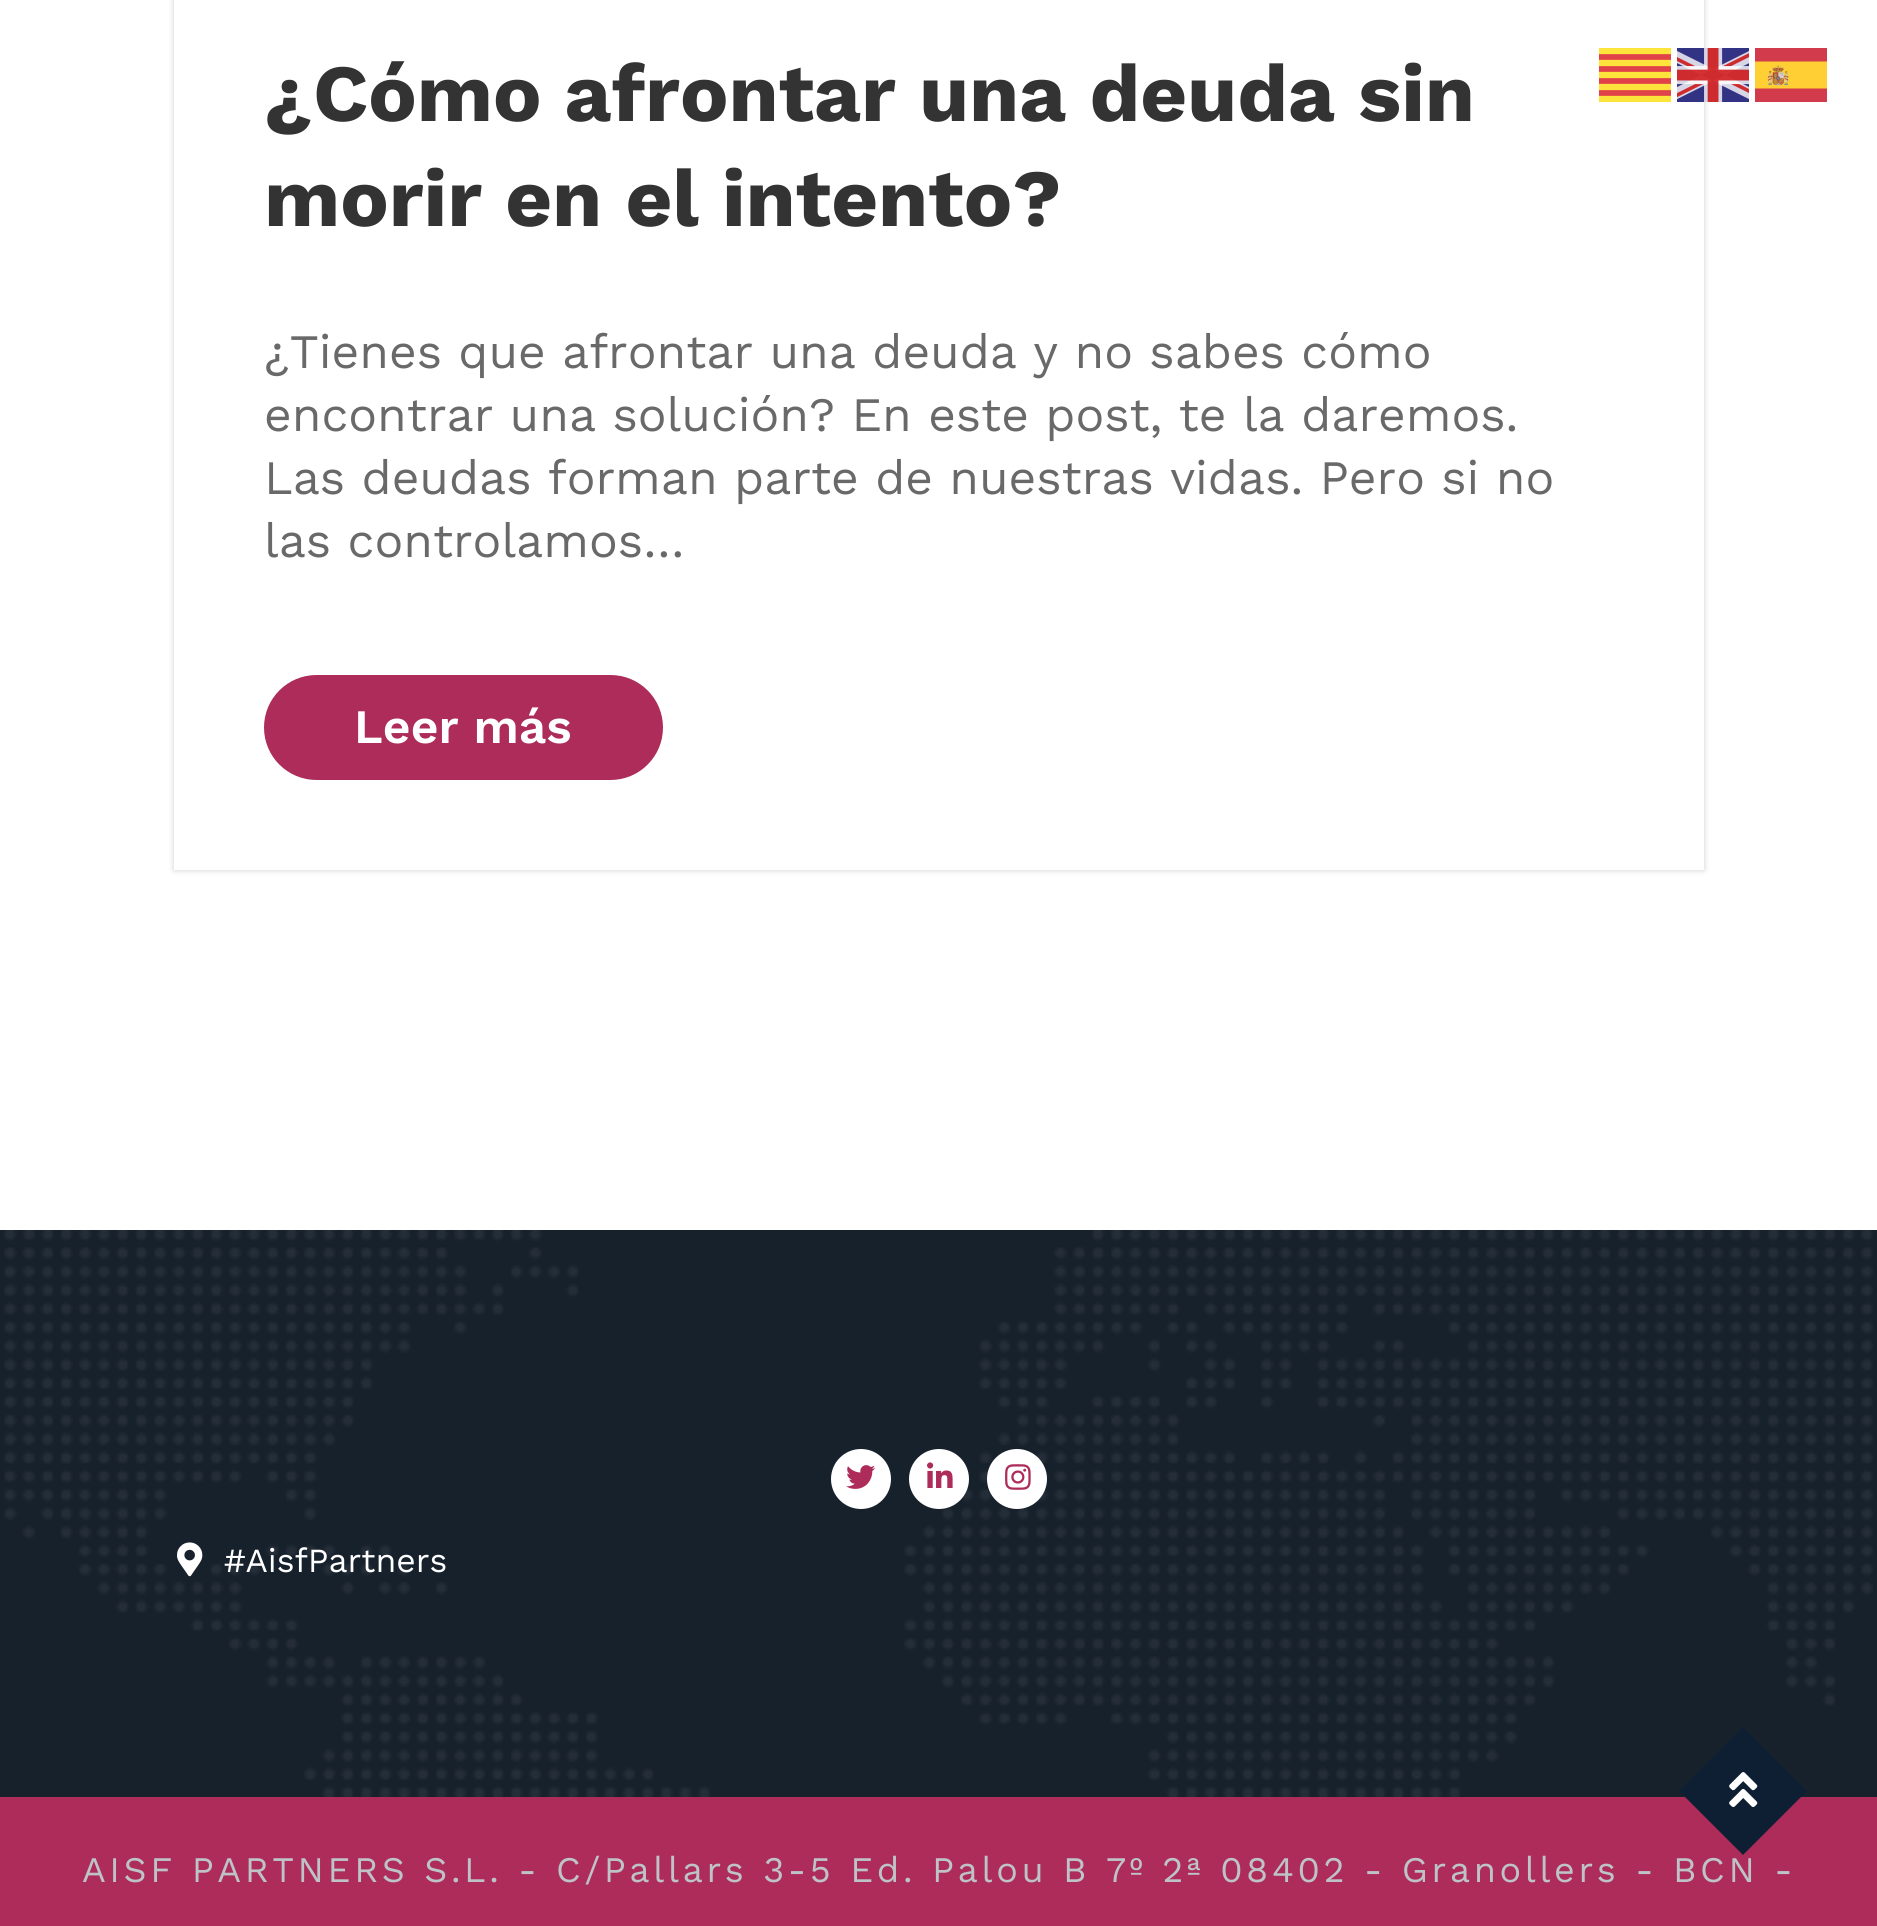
#include <cairo/cairo.h>
#include <math.h>
#include <stddef.h>


static void draw_spaced(cairo_t *cr, double x, double y, const char *s, double letter, double word) {
  cairo_move_to(cr, x, y);
  while (*s) {
    char ch[5] = {0};
    int n = 0;
    do ch[n++] = *s++; while ((*s & 0xC0) == 0x80);
    cairo_show_text(cr, ch);
    cairo_rel_move_to(cr, letter + word * (*ch == ' '), 0);
  }
}

static void rounded_rect(cairo_t *cr, double x, double y, double w, double h, double r) {
  cairo_new_sub_path(cr);
  cairo_arc(cr, x + w - r, y + h - r, r, 0, M_PI / 2);
  cairo_arc(cr, x + r, y + h - r, r, M_PI / 2, M_PI);
  cairo_arc(cr, x + r, y + r, r, M_PI, 1.5 * M_PI);
  cairo_arc(cr, x + w - r, y + r, r, 1.5 * M_PI, 2 * M_PI);
  cairo_close_path(cr);
}

static void draw_shadow(cairo_t *cr, double x, double y, double w, double h, double r, double blur, double alpha) {
  cairo_push_group_with_content(cr, CAIRO_CONTENT_ALPHA);
  cairo_set_operator(cr, CAIRO_OPERATOR_SOURCE);
  for (int i = 15; i >= -15 && fmin(w, h) + blur * i / 3 > 0; i -= 2) {
    double e = blur * i / 6;
    cairo_set_source_rgba(cr, 0, 0, 0, alpha * erfc((i - 1) / 8.5) / 2);
    rounded_rect(cr, x - e, y - e, w + 2 * e, h + 2 * e, fmax(0, fmin(r + e + blur * .6, fmin(w, h) / 2 + e)));
    cairo_fill(cr);
  }
  cairo_pattern_t *soft = cairo_pop_group(cr);
  cairo_mask(cr, soft);
  cairo_pattern_destroy(soft);
}

static void draw_image(cairo_t *cr, const char *path, double x, double y, double w, double h) {
  cairo_surface_t *image = cairo_image_surface_create_from_png(path);
  cairo_save(cr);
  cairo_set_source_surface(cr, image, x, y);
  cairo_rectangle(cr, x, y, w, h);
  cairo_fill(cr);
  cairo_restore(cr);
  cairo_surface_destroy(image);
}

static void draw(cairo_t *cr) {
  cairo_set_source_rgb(cr, 1, 1, 1);
  cairo_paint(cr);
  cairo_save(cr);
  cairo_set_fill_rule(cr, CAIRO_FILL_RULE_EVEN_ODD);
  cairo_new_path(cr);
  cairo_move_to(cr, 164, 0);
  cairo_line_to(cr, 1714, 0);
  cairo_line_to(cr, 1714, 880);
  cairo_line_to(cr, 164, 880);
  cairo_close_path(cr);
  cairo_move_to(cr, 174, -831);
  cairo_line_to(cr, 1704, -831);
  cairo_line_to(cr, 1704, 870);
  cairo_line_to(cr, 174, 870);
  cairo_close_path(cr);
  cairo_clip(cr);
  cairo_set_source_rgb(cr, 0, 0, 0);
  draw_shadow(cr, 174, -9, 1530, 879, 0, 3, 0.2);
  cairo_restore(cr);
  cairo_set_source_rgb(cr, 253 / 255.0, 228 / 255.0, 58 / 255.0);
  cairo_rectangle(cr, 1599, 48, 72, 54);
  cairo_fill(cr);
  draw_image(cr, "images/1.png", 1677, 48, 72, 54);
  draw_image(cr, "images/2.png", 1755, 48, 72, 54);
  cairo_new_path(cr);
  cairo_move_to(cr, 1599, 57);
  cairo_line_to(cr, 1671, 57);
  cairo_move_to(cr, 1671, 69);
  cairo_line_to(cr, 1599, 69);
  cairo_move_to(cr, 1599, 81);
  cairo_line_to(cr, 1671, 81);
  cairo_move_to(cr, 1671, 93);
  cairo_line_to(cr, 1599, 93);
  cairo_set_source_rgb(cr, 225 / 255.0, 65 / 255.0, 72 / 255.0);
  cairo_set_line_width(cr, 5.7);
  cairo_stroke(cr);
  cairo_set_source_rgb(cr, 173 / 255.0, 44 / 255.0, 90 / 255.0);
  rounded_rect(cr, 264, 675, 399, 105, 52.5);
  cairo_fill(cr);
  cairo_set_source_rgb(cr, 23 / 255.0, 33 / 255.0, 44 / 255.0);
  cairo_rectangle(cr, 0, 1230, 1877, 567);
  cairo_fill(cr);
  draw_image(cr, "images/3.png", 4, 1230, 1869, 567);
  cairo_set_source_rgb(cr, 1, 1, 1);
  cairo_arc(cr, 861, 1479, 30, 0, 2 * M_PI);
  cairo_fill(cr);
  draw_image(cr, "images/4.png", 846, 1465, 30, 24);
  cairo_arc(cr, 939, 1479, 30, 0, 2 * M_PI);
  cairo_fill(cr);
  draw_image(cr, "images/5.png", 927, 1462, 26, 26);
  cairo_arc(cr, 1017, 1479, 30, 0, 2 * M_PI);
  cairo_fill(cr);
  draw_image(cr, "images/6.png", 1005, 1464, 26, 26);
  draw_image(cr, "images/7.png", 177, 1542, 26, 35);
  cairo_set_source_rgb(cr, 173 / 255.0, 44 / 255.0, 90 / 255.0);
  cairo_rectangle(cr, 0, 1797, 1877, 129);
  cairo_fill(cr);
  cairo_set_source_rgb(cr, 14 / 255.0, 31 / 255.0, 52 / 255.0);
  cairo_new_path(cr);
  cairo_move_to(cr, 1743, 1727);
  cairo_line_to(cr, 1807, 1791);
  cairo_line_to(cr, 1743, 1855);
  cairo_line_to(cr, 1679, 1791);
  cairo_close_path(cr);
  cairo_fill(cr);
  draw_image(cr, "images/8.png", 1729, 1772, 29, 35);
  cairo_select_font_face(cr, "Work Sans", CAIRO_FONT_SLANT_NORMAL, CAIRO_FONT_WEIGHT_BOLD);
  cairo_set_font_size(cr, 81);
  cairo_set_source_rgb(cr, 51 / 255.0, 51 / 255.0, 51 / 255.0);
  cairo_move_to(cr, 264, 121);
  cairo_show_text(cr, "¿Cómo afrontar una deuda sin");
  cairo_move_to(cr, 264, 226);
  cairo_show_text(cr, "morir en el intento?");
  cairo_select_font_face(cr, "Work Sans", CAIRO_FONT_SLANT_NORMAL, CAIRO_FONT_WEIGHT_NORMAL);
  cairo_set_font_size(cr, 48);
  cairo_set_source_rgb(cr, 105 / 255.0, 105 / 255.0, 105 / 255.0);
  cairo_move_to(cr, 264, 368);
  cairo_show_text(cr, "¿Tienes que afrontar una deuda y no sabes cómo");
  cairo_move_to(cr, 264, 431);
  cairo_show_text(cr, "encontrar una solución? En este post, te la daremos.");
  cairo_move_to(cr, 264, 494);
  cairo_show_text(cr, "Las deudas forman parte de nuestras vidas. Pero si no");
  cairo_move_to(cr, 264, 557);
  cairo_show_text(cr, "las controlamos…");
  cairo_select_font_face(cr, "Work Sans SemiBold", CAIRO_FONT_SLANT_NORMAL, CAIRO_FONT_WEIGHT_NORMAL);
  cairo_set_source_rgb(cr, 1, 1, 1);
  cairo_move_to(cr, 354, 743);
  cairo_show_text(cr, "Leer más");
  cairo_select_font_face(cr, "Work Sans", CAIRO_FONT_SLANT_NORMAL, CAIRO_FONT_WEIGHT_NORMAL);
  cairo_set_font_size(cr, 33.75);
  cairo_move_to(cr, 224, 1572);
  cairo_show_text(cr, "#AisfPartners");
  cairo_set_font_size(cr, 36);
  cairo_set_source_rgb(cr, 190 / 255.0, 195 / 255.0, 199 / 255.0);
  draw_spaced(cr, 82, 1882, "AISF PARTNERS S.L. - C/Pallars 3-5 Ed. Palou B 7º 2ª 08402 - Granollers - BCN -", 3.6, 0);
}

int main(void) {
  cairo_surface_t *surface = cairo_image_surface_create(CAIRO_FORMAT_RGB24, 1877, 1926);
  cairo_t *cr = cairo_create(surface);
  cairo_font_options_t *options = cairo_font_options_create();
  cairo_font_options_set_hint_metrics(options, CAIRO_HINT_METRICS_OFF);
  cairo_font_options_set_hint_style(options, CAIRO_HINT_STYLE_NONE);
  cairo_set_font_options(cr, options);
  cairo_set_miter_limit(cr, 4);
  draw(cr);
  cairo_surface_write_to_png(surface, "out.png");
  cairo_font_options_destroy(options);
  cairo_destroy(cr);
  cairo_surface_destroy(surface);
  return 0;
}
